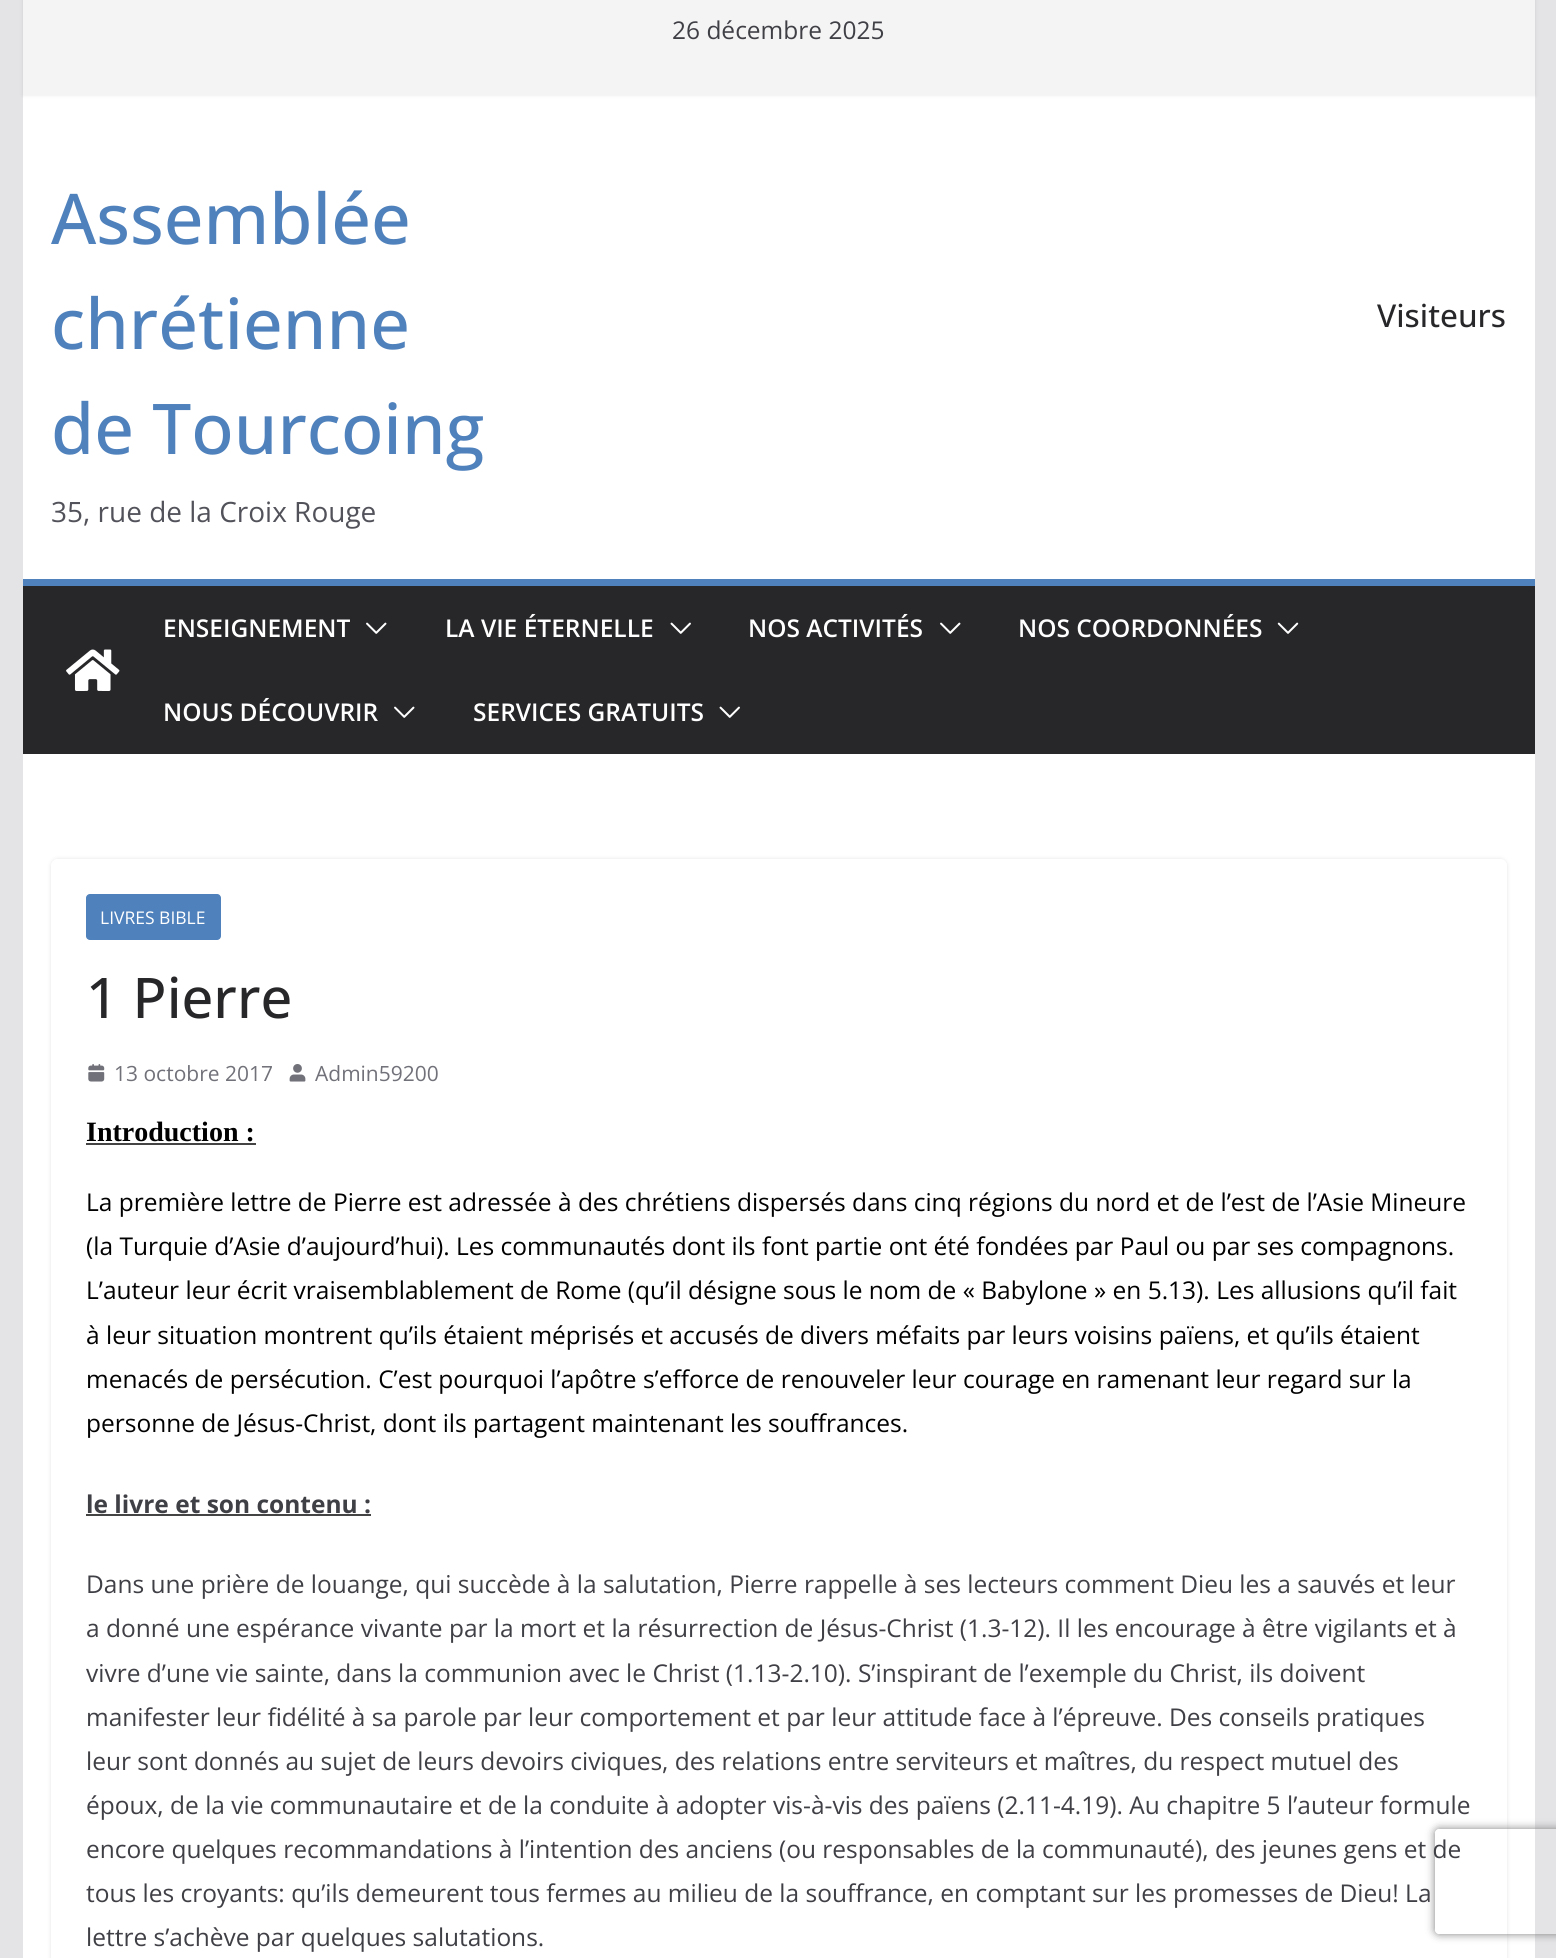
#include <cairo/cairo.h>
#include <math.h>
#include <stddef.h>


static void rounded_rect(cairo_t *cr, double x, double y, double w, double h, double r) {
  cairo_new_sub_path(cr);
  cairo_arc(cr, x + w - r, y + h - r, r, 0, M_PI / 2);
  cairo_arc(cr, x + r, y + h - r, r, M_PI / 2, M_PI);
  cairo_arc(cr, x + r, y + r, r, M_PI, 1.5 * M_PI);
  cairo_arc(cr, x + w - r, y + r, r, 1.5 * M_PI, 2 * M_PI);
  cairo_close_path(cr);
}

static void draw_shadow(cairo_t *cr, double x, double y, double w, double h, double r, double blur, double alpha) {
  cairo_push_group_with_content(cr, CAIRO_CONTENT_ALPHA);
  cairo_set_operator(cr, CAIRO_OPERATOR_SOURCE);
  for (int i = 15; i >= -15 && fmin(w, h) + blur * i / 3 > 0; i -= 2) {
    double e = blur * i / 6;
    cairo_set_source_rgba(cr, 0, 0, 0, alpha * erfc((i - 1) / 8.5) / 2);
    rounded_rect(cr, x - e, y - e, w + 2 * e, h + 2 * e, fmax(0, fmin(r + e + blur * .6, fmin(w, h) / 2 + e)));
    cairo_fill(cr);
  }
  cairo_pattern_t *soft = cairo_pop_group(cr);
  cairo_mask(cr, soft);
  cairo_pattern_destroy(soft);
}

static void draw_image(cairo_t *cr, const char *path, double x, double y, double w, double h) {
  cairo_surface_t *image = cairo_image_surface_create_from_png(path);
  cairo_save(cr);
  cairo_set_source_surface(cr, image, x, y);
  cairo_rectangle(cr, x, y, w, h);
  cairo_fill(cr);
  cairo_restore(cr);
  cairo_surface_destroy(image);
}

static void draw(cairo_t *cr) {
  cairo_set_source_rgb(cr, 228 / 255.0, 228 / 255.0, 231 / 255.0);
  cairo_paint(cr);
  cairo_set_source_rgb(cr, 1, 1, 1);
  cairo_rectangle(cr, 23, 95, 1512, 484);
  cairo_fill(cr);
  cairo_set_source_rgb(cr, 0, 0, 0);
  draw_shadow(cr, 23, -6, 1512, 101, 0, 2, 0.1);
  cairo_set_source_rgb(cr, 244 / 255.0, 244 / 255.0, 245 / 255.0);
  cairo_rectangle(cr, 23, 0, 1512, 95);
  cairo_fill(cr);
  cairo_set_source_rgb(cr, 39 / 255.0, 39 / 255.0, 42 / 255.0);
  cairo_rectangle(cr, 23, 586, 1512, 168);
  cairo_fill(cr);
  cairo_set_source_rgb(cr, 79 / 255.0, 129 / 255.0, 188 / 255.0);
  cairo_rectangle(cr, 23, 579, 1512, 7);
  cairo_fill(cr);
  draw_image(cr, "images/1.png", 66, 649, 54, 42);
  draw_image(cr, "images/2.png", 366, 622, 21, 12);
  draw_image(cr, "images/3.png", 670, 622, 21, 12);
  draw_image(cr, "images/2.png", 940, 622, 21, 12);
  draw_image(cr, "images/4.png", 1277, 622, 22, 12);
  draw_image(cr, "images/2.png", 394, 706, 21, 12);
  draw_image(cr, "images/3.png", 719, 706, 21, 12);
  cairo_set_source_rgb(cr, 1, 1, 1);
  cairo_rectangle(cr, 23, 754, 1512, 1204);
  cairo_fill(cr);
  cairo_save(cr);
  cairo_set_fill_rule(cr, CAIRO_FILL_RULE_EVEN_ODD);
  cairo_new_path(cr);
  cairo_move_to(cr, 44, 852);
  cairo_line_to(cr, 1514, 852);
  cairo_line_to(cr, 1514, 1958);
  cairo_line_to(cr, 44, 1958);
  cairo_close_path(cr);
  cairo_move_to(cr, 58, 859);
  cairo_line_to(cr, 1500, 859);
  cairo_curve_to(cr, 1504, 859, 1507, 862, 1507, 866);
  cairo_line_to(cr, 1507, 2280);
  cairo_curve_to(cr, 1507, 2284, 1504, 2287, 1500, 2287);
  cairo_line_to(cr, 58, 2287);
  cairo_curve_to(cr, 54, 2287, 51, 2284, 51, 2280);
  cairo_line_to(cr, 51, 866);
  cairo_curve_to(cr, 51, 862, 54, 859, 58, 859);
  cairo_close_path(cr);
  cairo_clip(cr);
  cairo_set_source_rgb(cr, 228 / 255.0, 228 / 255.0, 231 / 255.0);
  draw_shadow(cr, 51, 859, 1456, 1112, 7, 2, 1);
  cairo_restore(cr);
  cairo_set_source_rgb(cr, 79 / 255.0, 129 / 255.0, 188 / 255.0);
  rounded_rect(cr, 86, 894, 135, 46, 4);
  cairo_fill(cr);
  draw_image(cr, "images/5.png", 88, 1064, 17, 18);
  draw_image(cr, "images/6.png", 289, 1064, 17, 18);
  cairo_set_source_rgb(cr, 68 / 255.0, 68 / 255.0, 68 / 255.0);
  cairo_rectangle(cr, 86, 1143, 170, 2);
  cairo_fill(cr);
  cairo_rectangle(cr, 86, 1514, 285, 2);
  cairo_fill(cr);
  cairo_save(cr);
  cairo_set_fill_rule(cr, CAIRO_FILL_RULE_EVEN_ODD);
  cairo_new_path(cr);
  cairo_move_to(cr, 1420, 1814);
  cairo_line_to(cr, 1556, 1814);
  cairo_line_to(cr, 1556, 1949);
  cairo_line_to(cr, 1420, 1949);
  cairo_close_path(cr);
  cairo_move_to(cr, 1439, 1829);
  cairo_line_to(cr, 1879, 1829);
  cairo_curve_to(cr, 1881, 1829, 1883, 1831, 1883, 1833);
  cairo_line_to(cr, 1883, 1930);
  cairo_curve_to(cr, 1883, 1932, 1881, 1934, 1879, 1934);
  cairo_line_to(cr, 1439, 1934);
  cairo_curve_to(cr, 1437, 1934, 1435, 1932, 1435, 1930);
  cairo_line_to(cr, 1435, 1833);
  cairo_curve_to(cr, 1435, 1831, 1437, 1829, 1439, 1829);
  cairo_close_path(cr);
  cairo_clip(cr);
  cairo_set_source_rgb(cr, 128 / 255.0, 128 / 255.0, 128 / 255.0);
  draw_shadow(cr, 1435, 1829, 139, 105, 4, 4.5, 1);
  cairo_restore(cr);
  cairo_select_font_face(cr, "Open Sans", CAIRO_FONT_SLANT_NORMAL, CAIRO_FONT_WEIGHT_NORMAL);
  cairo_set_font_size(cr, 24.5);
  cairo_set_source_rgb(cr, 63 / 255.0, 63 / 255.0, 70 / 255.0);
  cairo_move_to(cr, 672, 39);
  cairo_show_text(cr, "26 décembre 2025");
  cairo_select_font_face(cr, "Open Sans Medium", CAIRO_FONT_SLANT_NORMAL, CAIRO_FONT_WEIGHT_NORMAL);
  cairo_set_font_size(cr, 70);
  cairo_set_source_rgb(cr, 79 / 255.0, 129 / 255.0, 188 / 255.0);
  cairo_move_to(cr, 51, 244);
  cairo_show_text(cr, "Assemblée");
  cairo_move_to(cr, 51, 349);
  cairo_show_text(cr, "chrétienne");
  cairo_move_to(cr, 51, 454);
  cairo_show_text(cr, "de Tourcoing");
  cairo_select_font_face(cr, "Open Sans", CAIRO_FONT_SLANT_NORMAL, CAIRO_FONT_WEIGHT_NORMAL);
  cairo_set_font_size(cr, 28);
  cairo_set_source_rgb(cr, 82 / 255.0, 82 / 255.0, 91 / 255.0);
  cairo_move_to(cr, 51, 522);
  cairo_show_text(cr, "35, rue de la Croix Rouge");
  cairo_select_font_face(cr, "Open Sans Medium", CAIRO_FONT_SLANT_NORMAL, CAIRO_FONT_WEIGHT_NORMAL);
  cairo_set_font_size(cr, 31.5);
  cairo_set_source_rgb(cr, 39 / 255.0, 39 / 255.0, 42 / 255.0);
  cairo_move_to(cr, 1377, 327);
  cairo_show_text(cr, "Visiteurs");
  cairo_select_font_face(cr, "Open Sans SemiBold", CAIRO_FONT_SLANT_NORMAL, CAIRO_FONT_WEIGHT_NORMAL);
  cairo_set_font_size(cr, 24.5);
  cairo_set_source_rgb(cr, 1, 1, 1);
  cairo_move_to(cr, 163, 637);
  cairo_show_text(cr, "ENSEIGNEMENT");
  cairo_move_to(cr, 445, 637);
  cairo_show_text(cr, "LA VIE ÉTERNELLE");
  cairo_move_to(cr, 748, 637);
  cairo_show_text(cr, "NOS ACTIVITÉS");
  cairo_move_to(cr, 1018, 637);
  cairo_show_text(cr, "NOS COORDONNÉES");
  cairo_move_to(cr, 163, 721);
  cairo_show_text(cr, "NOUS DÉCOUVRIR");
  cairo_move_to(cr, 473, 721);
  cairo_show_text(cr, "SERVICES GRATUITS");
  cairo_select_font_face(cr, "Open Sans", CAIRO_FONT_SLANT_NORMAL, CAIRO_FONT_WEIGHT_NORMAL);
  cairo_set_font_size(cr, 17.5);
  cairo_move_to(cr, 100, 924);
  cairo_show_text(cr, "LIVRES BIBLE");
  cairo_select_font_face(cr, "Open Sans Medium", CAIRO_FONT_SLANT_NORMAL, CAIRO_FONT_WEIGHT_NORMAL);
  cairo_set_font_size(cr, 56);
  cairo_set_source_rgb(cr, 39 / 255.0, 39 / 255.0, 42 / 255.0);
  cairo_move_to(cr, 86, 1018);
  cairo_show_text(cr, "1 Pierre");
  cairo_select_font_face(cr, "Open Sans", CAIRO_FONT_SLANT_NORMAL, CAIRO_FONT_WEIGHT_NORMAL);
  cairo_set_font_size(cr, 21);
  cairo_set_source_rgb(cr, 113 / 255.0, 113 / 255.0, 122 / 255.0);
  cairo_move_to(cr, 114, 1081);
  cairo_show_text(cr, "13 octobre 2017");
  cairo_move_to(cr, 315, 1081);
  cairo_show_text(cr, "Admin59200");
  cairo_select_font_face(cr, "Liberation Serif", CAIRO_FONT_SLANT_NORMAL, CAIRO_FONT_WEIGHT_BOLD);
  cairo_set_font_size(cr, 28);
  cairo_set_source_rgb(cr, 0, 0, 0);
  cairo_move_to(cr, 86, 1141);
  cairo_show_text(cr, "Introduction :");
  cairo_select_font_face(cr, "Open Sans", CAIRO_FONT_SLANT_NORMAL, CAIRO_FONT_WEIGHT_NORMAL);
  cairo_set_font_size(cr, 24.5);
  cairo_move_to(cr, 86, 1211);
  cairo_show_text(cr, "La première lettre de Pierre est adressée à des chrétiens dispersés dans cinq régions du nord et de l’est de l’Asie Mineure");
  cairo_move_to(cr, 86, 1255);
  cairo_show_text(cr, "(la Turquie d’Asie d’aujourd’hui). Les communautés dont ils font partie ont été fondées par Paul ou par ses compagnons.");
  cairo_move_to(cr, 86, 1299);
  cairo_show_text(cr, "L’auteur leur écrit vraisemblablement de Rome (qu’il désigne sous le nom de « Babylone » en 5.13). Les allusions qu’il fait");
  cairo_move_to(cr, 86, 1344);
  cairo_show_text(cr, "à leur situation montrent qu’ils étaient méprisés et accusés de divers méfaits par leurs voisins païens, et qu’ils étaient");
  cairo_move_to(cr, 86, 1388);
  cairo_show_text(cr, "menacés de persécution. C’est pourquoi l’apôtre s’efforce de renouveler leur courage en ramenant leur regard sur la");
  cairo_move_to(cr, 86, 1432);
  cairo_show_text(cr, "personne de Jésus-Christ, dont ils partagent maintenant les souffrances.");
  cairo_select_font_face(cr, "Open Sans", CAIRO_FONT_SLANT_NORMAL, CAIRO_FONT_WEIGHT_BOLD);
  cairo_set_source_rgb(cr, 63 / 255.0, 63 / 255.0, 70 / 255.0);
  cairo_move_to(cr, 86, 1513);
  cairo_show_text(cr, "le livre et son contenu :");
  cairo_select_font_face(cr, "Open Sans", CAIRO_FONT_SLANT_NORMAL, CAIRO_FONT_WEIGHT_NORMAL);
  cairo_move_to(cr, 86, 1593);
  cairo_show_text(cr, "Dans une prière de louange, qui succède à la salutation, Pierre rappelle à ses lecteurs comment Dieu les a sauvés et leur");
  cairo_move_to(cr, 86, 1637);
  cairo_show_text(cr, "a donné une espérance vivante par la mort et la résurrection de Jésus-Christ (1.3-12). Il les encourage à être vigilants et à");
  cairo_move_to(cr, 86, 1682);
  cairo_show_text(cr, "vivre d’une vie sainte, dans la communion avec le Christ (1.13-2.10). S’inspirant de l’exemple du Christ, ils doivent");
  cairo_move_to(cr, 86, 1726);
  cairo_show_text(cr, "manifester leur fidélité à sa parole par leur comportement et par leur attitude face à l’épreuve. Des conseils pratiques");
  cairo_move_to(cr, 86, 1770);
  cairo_show_text(cr, "leur sont donnés au sujet de leurs devoirs civiques, des relations entre serviteurs et maîtres, du respect mutuel des");
  cairo_move_to(cr, 86, 1814);
  cairo_show_text(cr, "époux, de la vie communautaire et de la conduite à adopter vis-à-vis des païens (2.11-4.19). Au chapitre 5 l’auteur formule");
  cairo_move_to(cr, 86, 1858);
  cairo_show_text(cr, "encore quelques recommandations à l’intention des anciens (ou responsables de la communauté), des jeunes gens et de");
  cairo_move_to(cr, 86, 1902);
  cairo_show_text(cr, "tous les croyants: qu’ils demeurent tous fermes au milieu de la souffrance, en comptant sur les promesses de Dieu! La");
  cairo_move_to(cr, 86, 1946);
  cairo_show_text(cr, "lettre s’achève par quelques salutations.");
}

int main(void) {
  cairo_surface_t *surface = cairo_image_surface_create(CAIRO_FORMAT_RGB24, 1556, 1958);
  cairo_t *cr = cairo_create(surface);
  cairo_font_options_t *options = cairo_font_options_create();
  cairo_font_options_set_hint_metrics(options, CAIRO_HINT_METRICS_OFF);
  cairo_font_options_set_hint_style(options, CAIRO_HINT_STYLE_NONE);
  cairo_set_font_options(cr, options);
  cairo_set_miter_limit(cr, 4);
  draw(cr);
  cairo_surface_write_to_png(surface, "out.png");
  cairo_font_options_destroy(options);
  cairo_destroy(cr);
  cairo_surface_destroy(surface);
  return 0;
}
